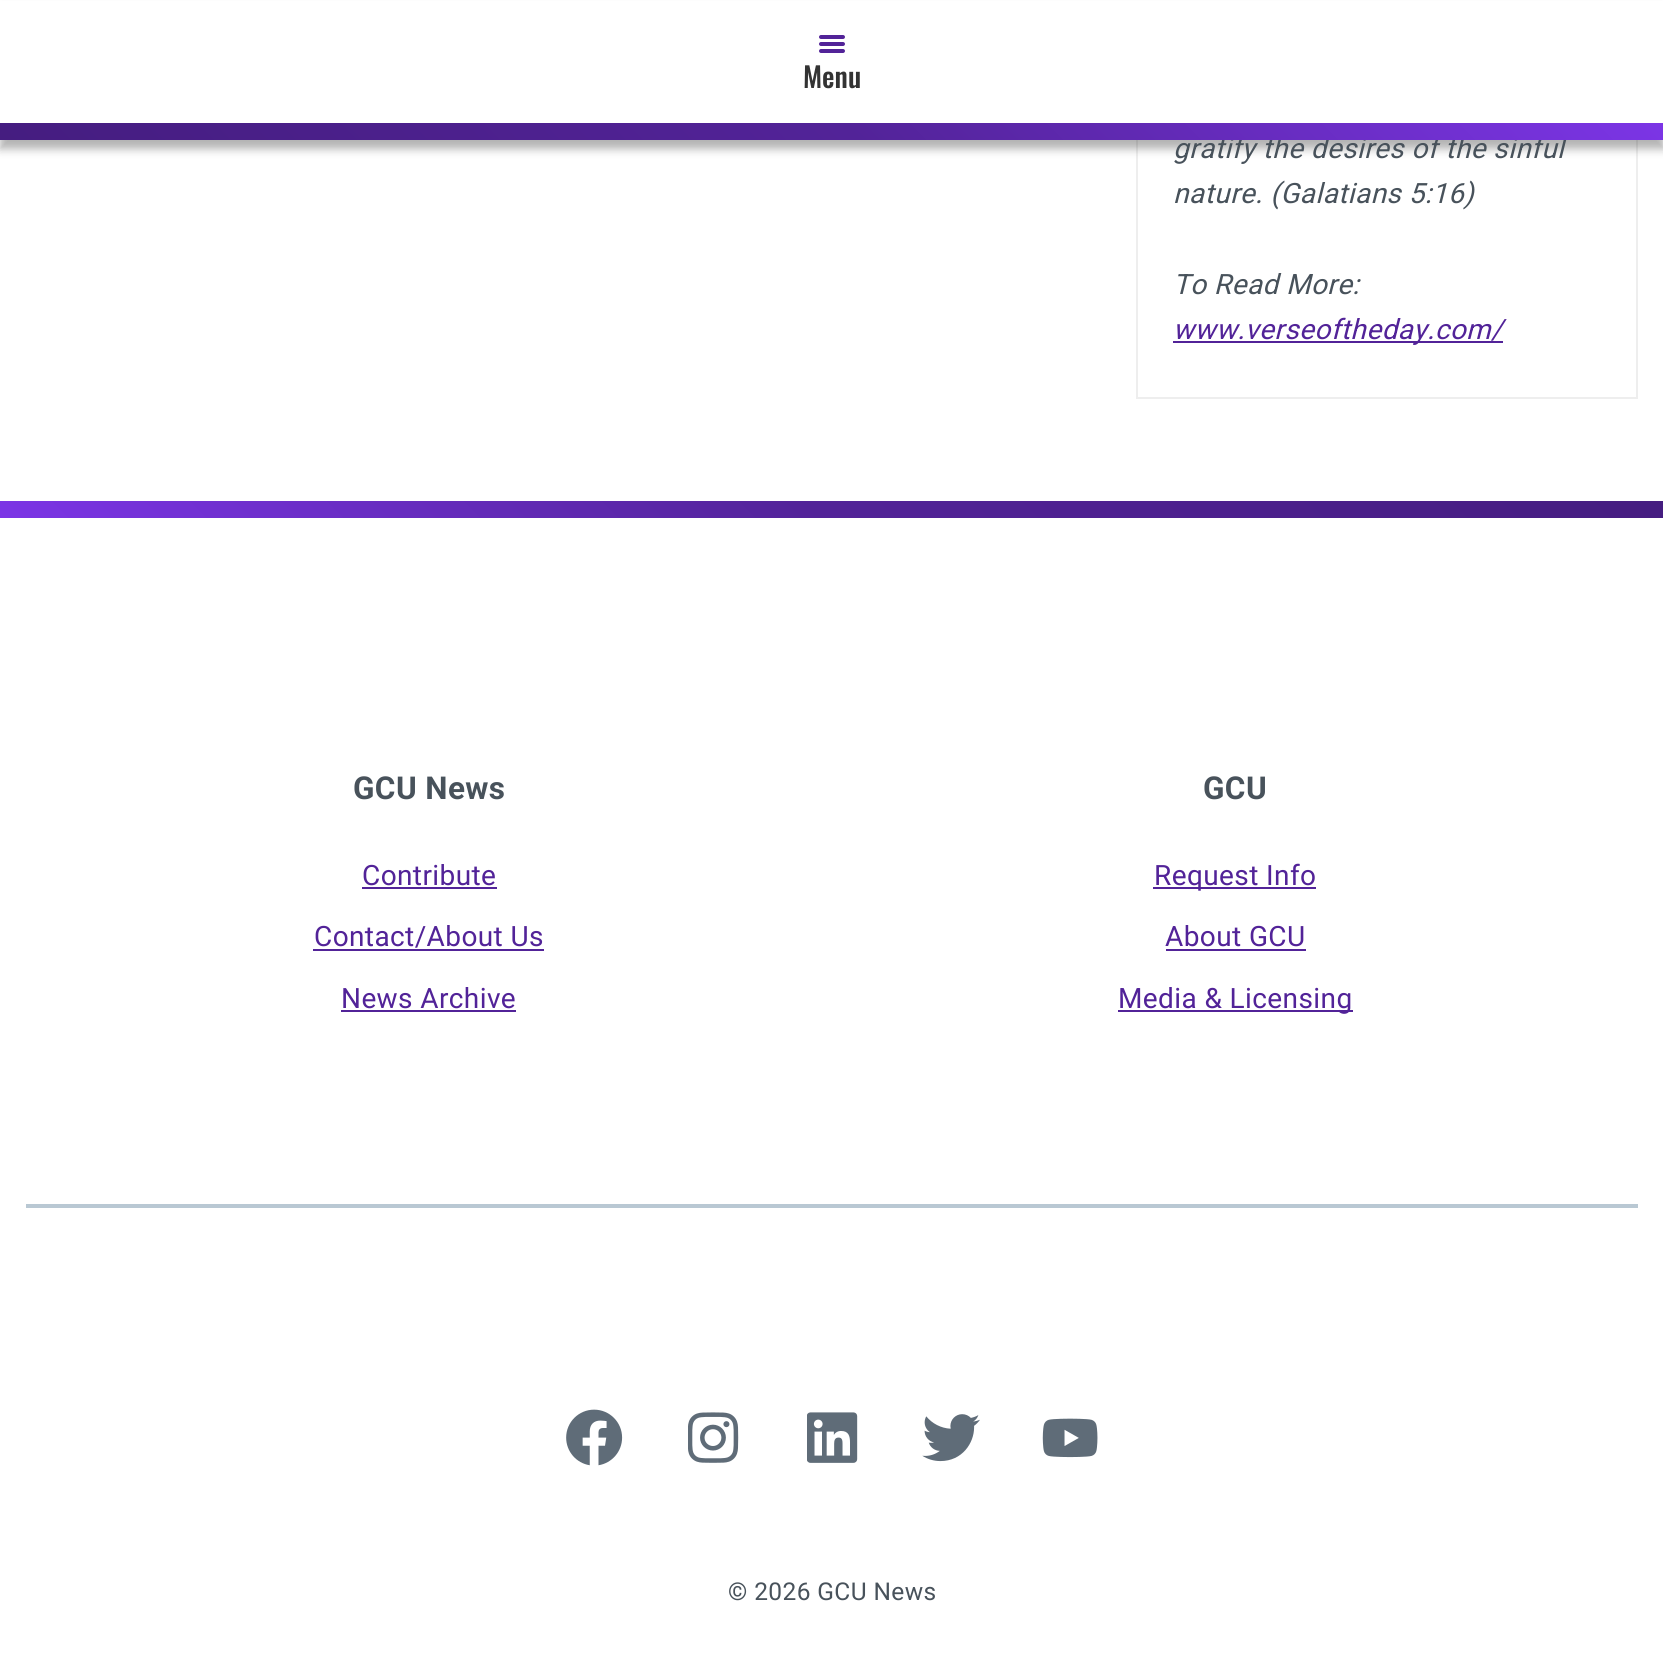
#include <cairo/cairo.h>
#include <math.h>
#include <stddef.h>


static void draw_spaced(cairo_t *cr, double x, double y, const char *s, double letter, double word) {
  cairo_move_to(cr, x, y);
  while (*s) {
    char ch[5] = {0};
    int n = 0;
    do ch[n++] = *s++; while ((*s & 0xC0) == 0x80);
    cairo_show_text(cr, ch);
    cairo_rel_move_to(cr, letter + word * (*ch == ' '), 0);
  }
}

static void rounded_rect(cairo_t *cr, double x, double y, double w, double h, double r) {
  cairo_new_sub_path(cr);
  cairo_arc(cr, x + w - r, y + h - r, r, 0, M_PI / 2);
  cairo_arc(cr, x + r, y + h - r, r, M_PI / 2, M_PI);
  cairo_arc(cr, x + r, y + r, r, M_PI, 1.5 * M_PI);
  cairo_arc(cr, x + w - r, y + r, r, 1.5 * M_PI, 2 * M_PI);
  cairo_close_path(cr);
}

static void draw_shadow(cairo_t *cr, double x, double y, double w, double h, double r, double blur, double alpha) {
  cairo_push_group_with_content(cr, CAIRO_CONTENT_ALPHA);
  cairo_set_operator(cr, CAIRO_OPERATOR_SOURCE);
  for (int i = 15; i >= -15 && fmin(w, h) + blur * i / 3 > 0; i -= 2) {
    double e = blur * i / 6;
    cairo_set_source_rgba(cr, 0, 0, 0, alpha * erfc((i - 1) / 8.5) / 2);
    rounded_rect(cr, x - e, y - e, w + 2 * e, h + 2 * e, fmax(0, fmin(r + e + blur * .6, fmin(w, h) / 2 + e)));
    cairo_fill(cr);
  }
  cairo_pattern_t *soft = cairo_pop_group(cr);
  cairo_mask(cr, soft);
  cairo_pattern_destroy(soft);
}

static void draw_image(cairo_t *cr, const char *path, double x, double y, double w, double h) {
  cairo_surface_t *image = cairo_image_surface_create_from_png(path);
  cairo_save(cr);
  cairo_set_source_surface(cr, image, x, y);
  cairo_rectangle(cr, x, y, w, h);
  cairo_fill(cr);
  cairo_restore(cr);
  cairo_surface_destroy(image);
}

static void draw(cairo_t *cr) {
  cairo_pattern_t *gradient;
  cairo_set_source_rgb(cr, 1, 1, 1);
  cairo_paint(cr);
  cairo_rectangle(cr, 1137, 36, 500, 362);
  cairo_set_source_rgb(cr, 238 / 255.0, 238 / 255.0, 238 / 255.0);
  cairo_stroke(cr);
  cairo_set_source_rgb(cr, 0, 0, 0);
  draw_shadow(cr, 0, 9, 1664, 140, 0, 4.5, 0.3);
  cairo_set_source_rgb(cr, 1, 1, 1);
  cairo_rectangle(cr, 0, 1, 1663, 122);
  cairo_fill(cr);
  cairo_set_source_rgb(cr, 82 / 255.0, 35 / 255.0, 152 / 255.0);
  rounded_rect(cr, 819, 35, 26, 4, 2);
  cairo_fill(cr);
  rounded_rect(cr, 819, 42, 26, 4, 2);
  cairo_fill(cr);
  rounded_rect(cr, 819, 49, 26, 4, 2);
  cairo_fill(cr);
  cairo_rectangle(cr, 1173, 341, 330, 2);
  cairo_fill(cr);
  gradient = cairo_pattern_create_linear(412, 930, 1253, 89);
  cairo_pattern_add_color_stop_rgba(gradient, 0, 82 / 255.0, 35 / 255.0, 152 / 255.0, 1);
  cairo_pattern_add_color_stop_rgba(gradient, 0, 124 / 255.0, 53 / 255.0, 230 / 255.0, 1);
  cairo_pattern_add_color_stop_rgba(gradient, 0.49, 82 / 255.0, 35 / 255.0, 152 / 255.0, 1);
  cairo_pattern_add_color_stop_rgba(gradient, 1, 69 / 255.0, 29 / 255.0, 128 / 255.0, 1);
  cairo_set_source(cr, gradient);
  cairo_pattern_destroy(gradient);
  cairo_rectangle(cr, 0, 501, 1663, 17);
  cairo_fill(cr);
  cairo_set_source_rgb(cr, 82 / 255.0, 35 / 255.0, 152 / 255.0);
  cairo_rectangle(cr, 362, 887, 135, 2);
  cairo_fill(cr);
  cairo_rectangle(cr, 313, 949, 231, 2);
  cairo_fill(cr);
  cairo_rectangle(cr, 341, 1010, 175, 2);
  cairo_fill(cr);
  cairo_rectangle(cr, 1153, 887, 163, 2);
  cairo_fill(cr);
  cairo_rectangle(cr, 1166, 949, 140, 2);
  cairo_fill(cr);
  cairo_rectangle(cr, 1118, 1010, 235, 2);
  cairo_fill(cr);
  cairo_set_source_rgb(cr, 185 / 255.0, 200 / 255.0, 211 / 255.0);
  cairo_rectangle(cr, 26, 1204, 1612, 4);
  cairo_fill(cr);
  draw_image(cr, "images/1.png", 566, 1409, 57, 57);
  draw_image(cr, "images/2.png", 688, 1412, 51, 51);
  draw_image(cr, "images/3.png", 807, 1412, 51, 51);
  draw_image(cr, "images/4.png", 922, 1414, 58, 48);
  draw_image(cr, "images/5.png", 1042, 1418, 56, 40);
  cairo_select_font_face(cr, "Oswald Medium", CAIRO_FONT_SLANT_NORMAL, CAIRO_FONT_WEIGHT_NORMAL);
  cairo_set_font_size(cr, 28);
  cairo_set_source_rgb(cr, 51 / 255.0, 51 / 255.0, 51 / 255.0);
  cairo_move_to(cr, 803, 88);
  cairo_show_text(cr, "Menu");
  cairo_select_font_face(cr, "Roboto", CAIRO_FONT_SLANT_ITALIC, CAIRO_FONT_WEIGHT_NORMAL);
  cairo_set_source_rgb(cr, 72 / 255.0, 82 / 255.0, 91 / 255.0);
  draw_spaced(cr, 1173, 158, "gratify the desires of the sinful", 0.4, 0);
  gradient = cairo_pattern_create_linear(412, 552, 1253, -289);
  cairo_pattern_add_color_stop_rgba(gradient, 0, 69 / 255.0, 29 / 255.0, 128 / 255.0, 1);
  cairo_pattern_add_color_stop_rgba(gradient, 0.51, 82 / 255.0, 35 / 255.0, 152 / 255.0, 1);
  cairo_pattern_add_color_stop_rgba(gradient, 1, 124 / 255.0, 53 / 255.0, 230 / 255.0, 1);
  cairo_pattern_add_color_stop_rgba(gradient, 1, 82 / 255.0, 35 / 255.0, 152 / 255.0, 1);
  cairo_set_source(cr, gradient);
  cairo_pattern_destroy(gradient);
  cairo_rectangle(cr, 0, 123, 1663, 17);
  cairo_fill(cr);
  cairo_set_source_rgb(cr, 72 / 255.0, 82 / 255.0, 91 / 255.0);
  draw_spaced(cr, 1173, 203, "nature. (Galatians 5:16)", 0.4, 0);
  draw_spaced(cr, 1173, 294, "To Read More:", 0.4, 0);
  cairo_set_source_rgb(cr, 82 / 255.0, 35 / 255.0, 152 / 255.0);
  draw_spaced(cr, 1173, 339, "www.verseoftheday.com/", 0.4, 0);
  cairo_select_font_face(cr, "Roboto", CAIRO_FONT_SLANT_NORMAL, CAIRO_FONT_WEIGHT_BOLD);
  cairo_set_font_size(cr, 31.5);
  cairo_set_source_rgb(cr, 72 / 255.0, 82 / 255.0, 91 / 255.0);
  draw_spaced(cr, 353, 799, "GCU News", 0.4, 0);
  cairo_select_font_face(cr, "Roboto", CAIRO_FONT_SLANT_NORMAL, CAIRO_FONT_WEIGHT_NORMAL);
  cairo_set_font_size(cr, 28);
  cairo_set_source_rgb(cr, 82 / 255.0, 35 / 255.0, 152 / 255.0);
  draw_spaced(cr, 362, 885, "Contribute", 0.4, 0);
  draw_spaced(cr, 314, 946, "Contact/About Us", 0.4, 0);
  draw_spaced(cr, 341, 1008, "News Archive", 0.4, 0);
  cairo_select_font_face(cr, "Roboto", CAIRO_FONT_SLANT_NORMAL, CAIRO_FONT_WEIGHT_BOLD);
  cairo_set_font_size(cr, 31.5);
  cairo_set_source_rgb(cr, 72 / 255.0, 82 / 255.0, 91 / 255.0);
  draw_spaced(cr, 1203, 799, "GCU", 0.4, 0);
  cairo_select_font_face(cr, "Roboto", CAIRO_FONT_SLANT_NORMAL, CAIRO_FONT_WEIGHT_NORMAL);
  cairo_set_font_size(cr, 28);
  cairo_set_source_rgb(cr, 82 / 255.0, 35 / 255.0, 152 / 255.0);
  draw_spaced(cr, 1154, 885, "Request Info", 0.4, 0);
  draw_spaced(cr, 1165, 946, "About GCU", 0.4, 0);
  draw_spaced(cr, 1118, 1008, "Media & Licensing", 0.4, 0);
  cairo_set_font_size(cr, 24.5);
  cairo_set_source_rgb(cr, 72 / 255.0, 82 / 255.0, 91 / 255.0);
  draw_spaced(cr, 728, 1600, "© 2026 GCU News", 0.4, 0);
}

int main(void) {
  cairo_surface_t *surface = cairo_image_surface_create(CAIRO_FORMAT_RGB24, 1663, 1665);
  cairo_t *cr = cairo_create(surface);
  cairo_font_options_t *options = cairo_font_options_create();
  cairo_font_options_set_hint_metrics(options, CAIRO_HINT_METRICS_OFF);
  cairo_font_options_set_hint_style(options, CAIRO_HINT_STYLE_NONE);
  cairo_set_font_options(cr, options);
  cairo_set_miter_limit(cr, 4);
  draw(cr);
  cairo_surface_write_to_png(surface, "out.png");
  cairo_font_options_destroy(options);
  cairo_destroy(cr);
  cairo_surface_destroy(surface);
  return 0;
}
